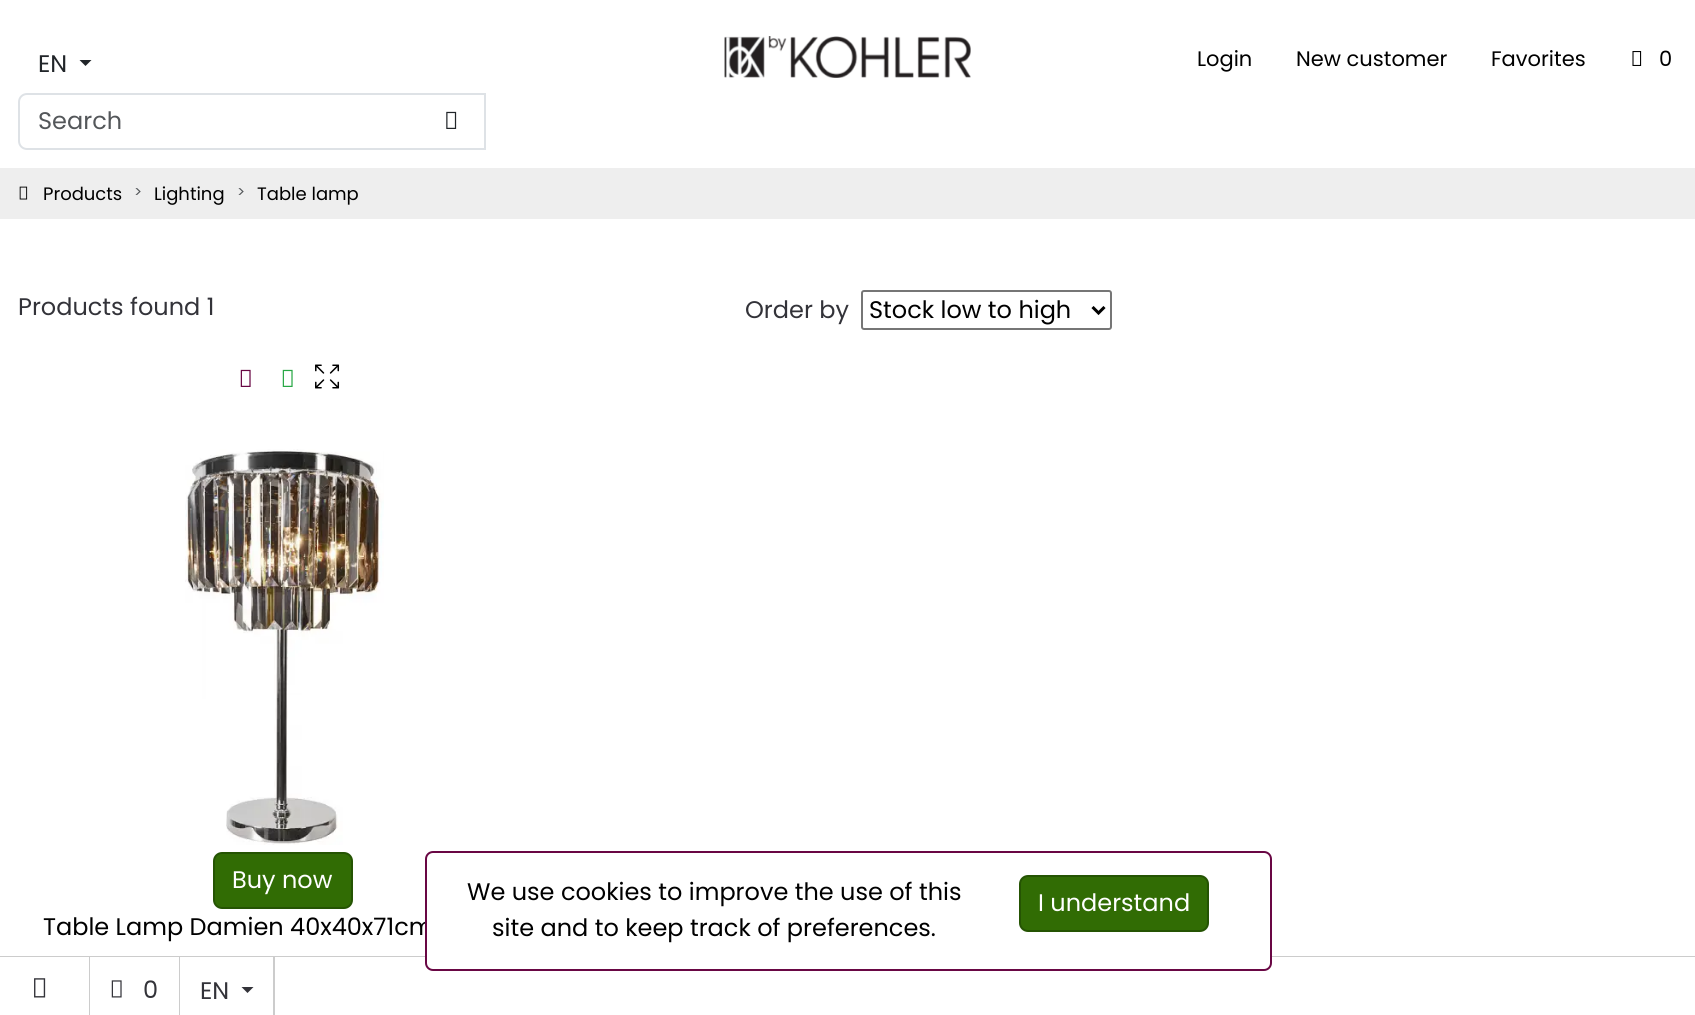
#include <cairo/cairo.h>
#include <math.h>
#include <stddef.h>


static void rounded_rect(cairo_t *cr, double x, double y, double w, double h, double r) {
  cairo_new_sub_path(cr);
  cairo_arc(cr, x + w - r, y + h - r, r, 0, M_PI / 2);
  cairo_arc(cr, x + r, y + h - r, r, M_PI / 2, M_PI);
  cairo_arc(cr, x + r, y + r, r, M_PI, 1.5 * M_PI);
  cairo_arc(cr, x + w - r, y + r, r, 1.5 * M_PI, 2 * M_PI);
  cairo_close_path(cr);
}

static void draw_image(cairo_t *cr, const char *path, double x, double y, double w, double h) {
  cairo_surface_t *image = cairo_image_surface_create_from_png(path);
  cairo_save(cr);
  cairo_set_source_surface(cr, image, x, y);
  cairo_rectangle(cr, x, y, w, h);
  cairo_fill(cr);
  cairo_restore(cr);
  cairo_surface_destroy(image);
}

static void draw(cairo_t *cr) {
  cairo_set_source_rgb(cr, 1, 1, 1);
  cairo_paint(cr);
  cairo_set_source_rgb(cr, 33 / 255.0, 37 / 255.0, 41 / 255.0);
  cairo_new_path(cr);
  cairo_move_to(cr, 79.5, 60);
  cairo_line_to(cr, 91.5, 60);
  cairo_line_to(cr, 85.5, 66);
  cairo_close_path(cr);
  cairo_fill(cr);
  cairo_new_path(cr);
  cairo_move_to(cr, 27, 94);
  cairo_line_to(cr, 485, 94);
  cairo_line_to(cr, 485, 149);
  cairo_line_to(cr, 27, 149);
  cairo_curve_to(cr, 22.5, 149, 19, 145.5, 19, 141);
  cairo_line_to(cr, 19, 102);
  cairo_curve_to(cr, 19, 97.5, 22.5, 94, 27, 94);
  cairo_close_path(cr);
  cairo_set_source_rgb(cr, 222 / 255.0, 226 / 255.0, 230 / 255.0);
  cairo_stroke(cr);
  draw_image(cr, "images/1.png", 446, 111, 11, 18);
  draw_image(cr, "images/2.png", 724, 36, 247, 42);
  draw_image(cr, "images/3.png", 1632, 51, 10, 15);
  cairo_set_source_rgb(cr, 238 / 255.0, 238 / 255.0, 238 / 255.0);
  cairo_rectangle(cr, 0, 168, 1695, 51);
  cairo_fill(cr);
  draw_image(cr, "images/4.png", 19, 186, 9, 14);
  rounded_rect(cr, 862, 291, 249, 38, 2);
  cairo_set_source_rgb(cr, 118 / 255.0, 118 / 255.0, 118 / 255.0);
  cairo_stroke(cr);
  cairo_new_path(cr);
  cairo_move_to(cr, 1092.5, 307);
  cairo_line_to(cr, 1098.5, 313);
  cairo_line_to(cr, 1104.5, 307);
  cairo_set_source_rgb(cr, 0, 0, 0);
  cairo_set_line_width(cr, 3);
  cairo_stroke(cr);
  draw_image(cr, "images/5.png", 240, 369, 11, 18);
  draw_image(cr, "images/6.png", 282, 369, 11, 18);
  draw_image(cr, "images/7.png", 315, 364, 25, 25);
  draw_image(cr, "images/8.png", 185, 449, 199, 396);
  cairo_set_source_rgb(cr, 49 / 255.0, 108 / 255.0, 4 / 255.0);
  rounded_rect(cr, 214, 853, 138, 55, 8);
  cairo_fill_preserve(cr);
  cairo_set_source_rgb(cr, 37 / 255.0, 84 / 255.0, 3 / 255.0);
  cairo_set_line_width(cr, 2);
  cairo_stroke(cr);
  cairo_set_source_rgb(cr, 204 / 255.0, 204 / 255.0, 204 / 255.0);
  cairo_rectangle(cr, 0, 956, 1695, 1);
  cairo_fill(cr);
  cairo_rectangle(cr, 89, 957, 1, 58);
  cairo_fill(cr);
  draw_image(cr, "images/9.png", 34, 978, 12, 20);
  cairo_rectangle(cr, 179, 957, 1, 58);
  cairo_fill(cr);
  draw_image(cr, "images/10.png", 111, 980, 11, 18);
  cairo_rectangle(cr, 273, 957, 2, 58);
  cairo_fill(cr);
  cairo_set_source_rgb(cr, 51 / 255.0, 51 / 255.0, 57 / 255.0);
  cairo_new_path(cr);
  cairo_move_to(cr, 241.5, 987);
  cairo_line_to(cr, 253.5, 987);
  cairo_line_to(cr, 247.5, 993);
  cairo_close_path(cr);
  cairo_fill(cr);
  cairo_select_font_face(cr, "Poppins", CAIRO_FONT_SLANT_NORMAL, CAIRO_FONT_WEIGHT_NORMAL);
  cairo_set_font_size(cr, 24);
  cairo_set_source_rgb(cr, 33 / 255.0, 37 / 255.0, 41 / 255.0);
  cairo_move_to(cr, 38, 72);
  cairo_show_text(cr, "EN");
  cairo_set_source_rgb(cr, 84 / 255.0, 87 / 255.0, 90 / 255.0);
  cairo_move_to(cr, 38, 129);
  cairo_show_text(cr, "Search");
  cairo_set_font_size(cr, 21);
  cairo_set_source_rgb(cr, 0, 0, 0);
  cairo_move_to(cr, 1197, 66);
  cairo_show_text(cr, "Login");
  cairo_move_to(cr, 1296, 66);
  cairo_show_text(cr, "New customer");
  cairo_move_to(cr, 1491, 66);
  cairo_show_text(cr, "Favorites");
  cairo_move_to(cr, 1659, 66);
  cairo_show_text(cr, "0");
  cairo_set_font_size(cr, 18);
  cairo_move_to(cr, 43, 200);
  cairo_show_text(cr, "Products");
  cairo_set_font_size(cr, 15);
  cairo_set_source_rgb(cr, 84 / 255.0, 87 / 255.0, 90 / 255.0);
  cairo_move_to(cr, 134, 197);
  cairo_show_text(cr, ">");
  cairo_set_font_size(cr, 18);
  cairo_set_source_rgb(cr, 0, 0, 0);
  cairo_move_to(cr, 154, 200);
  cairo_show_text(cr, "Lighting");
  cairo_set_font_size(cr, 15);
  cairo_set_source_rgb(cr, 84 / 255.0, 87 / 255.0, 90 / 255.0);
  cairo_move_to(cr, 237, 197);
  cairo_show_text(cr, ">");
  cairo_set_font_size(cr, 18);
  cairo_set_source_rgb(cr, 0, 0, 0);
  cairo_move_to(cr, 257, 200);
  cairo_show_text(cr, "Table lamp");
  cairo_set_font_size(cr, 24);
  cairo_set_source_rgb(cr, 51 / 255.0, 51 / 255.0, 57 / 255.0);
  cairo_move_to(cr, 18, 315);
  cairo_show_text(cr, "Products found 1");
  cairo_move_to(cr, 745, 318);
  cairo_show_text(cr, "Order by");
  cairo_set_source_rgb(cr, 0, 0, 0);
  cairo_move_to(cr, 869, 318);
  cairo_show_text(cr, "Stock low to high");
  cairo_set_source_rgb(cr, 1, 1, 1);
  cairo_move_to(cr, 232, 888);
  cairo_show_text(cr, "Buy now");
  cairo_set_source_rgb(cr, 0, 0, 0);
  cairo_move_to(cr, 43, 935);
  cairo_show_text(cr, "Table Lamp Damien 40x40x71cm");
  cairo_set_source_rgb(cr, 1, 1, 1);
  rounded_rect(cr, 426, 852, 845, 118, 7);
  cairo_fill_preserve(cr);
  cairo_set_source_rgb(cr, 105 / 255.0, 7 / 255.0, 68 / 255.0);
  cairo_stroke(cr);
  cairo_set_source_rgb(cr, 0, 0, 0);
  cairo_move_to(cr, 467, 900);
  cairo_show_text(cr, "We use cookies to improve the use of this");
  cairo_move_to(cr, 492, 936);
  cairo_show_text(cr, "site and to keep track of preferences.");
  cairo_set_source_rgb(cr, 49 / 255.0, 108 / 255.0, 4 / 255.0);
  rounded_rect(cr, 1020, 876, 188, 55, 8);
  cairo_fill_preserve(cr);
  cairo_set_source_rgb(cr, 37 / 255.0, 84 / 255.0, 3 / 255.0);
  cairo_stroke(cr);
  cairo_set_source_rgb(cr, 1, 1, 1);
  cairo_move_to(cr, 1038, 911);
  cairo_show_text(cr, "I understand");
  cairo_set_source_rgb(cr, 51 / 255.0, 51 / 255.0, 57 / 255.0);
  cairo_move_to(cr, 143, 998);
  cairo_show_text(cr, "0");
  cairo_move_to(cr, 200, 999);
  cairo_show_text(cr, "EN");
}

int main(void) {
  cairo_surface_t *surface = cairo_image_surface_create(CAIRO_FORMAT_RGB24, 1695, 1015);
  cairo_t *cr = cairo_create(surface);
  cairo_font_options_t *options = cairo_font_options_create();
  cairo_font_options_set_hint_metrics(options, CAIRO_HINT_METRICS_OFF);
  cairo_font_options_set_hint_style(options, CAIRO_HINT_STYLE_NONE);
  cairo_set_font_options(cr, options);
  cairo_set_miter_limit(cr, 4);
  draw(cr);
  cairo_surface_write_to_png(surface, "out.png");
  cairo_font_options_destroy(options);
  cairo_destroy(cr);
  cairo_surface_destroy(surface);
  return 0;
}
